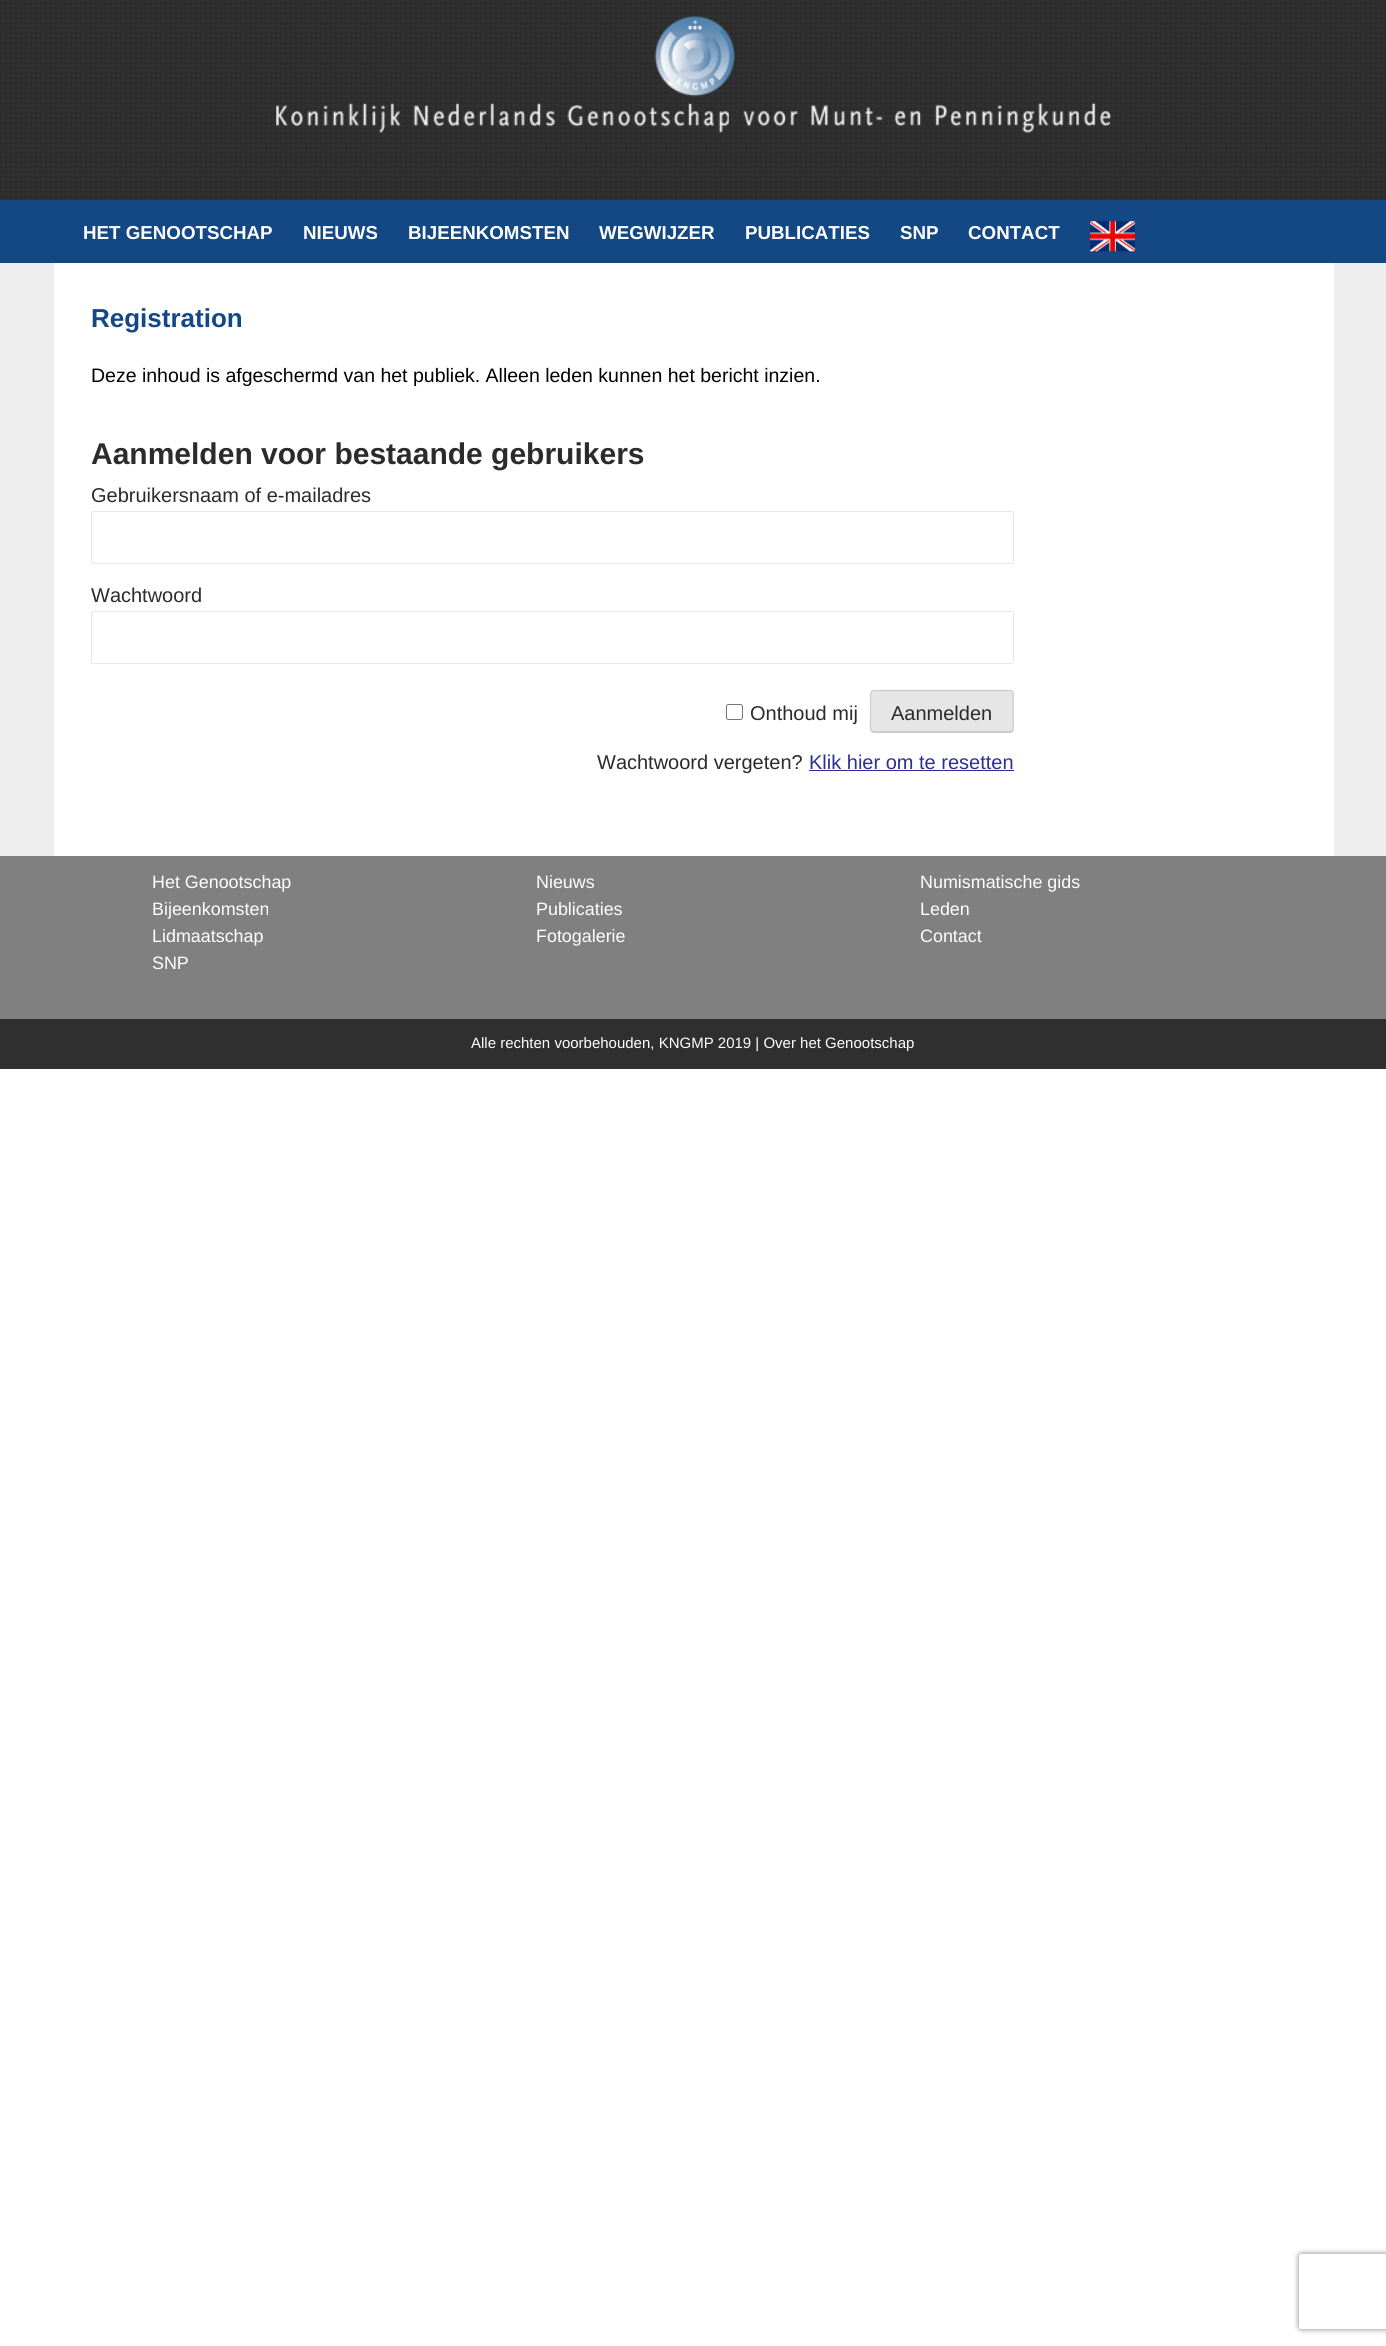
#include <cairo/cairo.h>
#include <math.h>
#include <stddef.h>


static void rounded_rect(cairo_t *cr, double x, double y, double w, double h, double r) {
  cairo_new_sub_path(cr);
  cairo_arc(cr, x + w - r, y + h - r, r, 0, M_PI / 2);
  cairo_arc(cr, x + r, y + h - r, r, M_PI / 2, M_PI);
  cairo_arc(cr, x + r, y + r, r, M_PI, 1.5 * M_PI);
  cairo_arc(cr, x + w - r, y + r, r, 1.5 * M_PI, 2 * M_PI);
  cairo_close_path(cr);
}

static void draw_shadow(cairo_t *cr, double x, double y, double w, double h, double r, double blur, double alpha) {
  cairo_push_group_with_content(cr, CAIRO_CONTENT_ALPHA);
  cairo_set_operator(cr, CAIRO_OPERATOR_SOURCE);
  for (int i = 15; i >= -15 && fmin(w, h) + blur * i / 3 > 0; i -= 2) {
    double e = blur * i / 6;
    cairo_set_source_rgba(cr, 0, 0, 0, alpha * erfc((i - 1) / 8.5) / 2);
    rounded_rect(cr, x - e, y - e, w + 2 * e, h + 2 * e, fmax(0, fmin(r + e + blur * .6, fmin(w, h) / 2 + e)));
    cairo_fill(cr);
  }
  cairo_pattern_t *soft = cairo_pop_group(cr);
  cairo_mask(cr, soft);
  cairo_pattern_destroy(soft);
}

static void draw_image(cairo_t *cr, const char *path, double x, double y, double w, double h) {
  cairo_surface_t *image = cairo_image_surface_create_from_png(path);
  cairo_save(cr);
  cairo_set_source_surface(cr, image, x, y);
  cairo_rectangle(cr, x, y, w, h);
  cairo_fill(cr);
  cairo_restore(cr);
  cairo_surface_destroy(image);
}

static void draw(cairo_t *cr) {
  cairo_set_source_rgb(cr, 1, 1, 1);
  cairo_paint(cr);
  cairo_set_source_rgb(cr, 239 / 255.0, 238 / 255.0, 238 / 255.0);
  cairo_rectangle(cr, 0, 263, 1386, 593);
  cairo_fill(cr);
  draw_image(cr, "images/1.png", 0, 0, 1386, 200);
  draw_image(cr, "images/2.png", 276, 16, 836, 117);
  cairo_set_source_rgb(cr, 19 / 255.0, 72 / 255.0, 133 / 255.0);
  cairo_rectangle(cr, 0, 200, 1386, 63);
  cairo_fill(cr);
  draw_image(cr, "images/3.png", 1090, 221, 45, 31);
  cairo_set_source_rgb(cr, 1, 1, 1);
  cairo_rectangle(cr, 54, 263, 1280, 593);
  cairo_fill(cr);
  rounded_rect(cr, 91.5, 511.5, 922, 52, 2);
  cairo_set_source_rgb(cr, 230 / 255.0, 230 / 255.0, 230 / 255.0);
  cairo_set_line_width(cr, 1);
  cairo_stroke(cr);
  rounded_rect(cr, 91.5, 611.5, 922, 52, 2);
  cairo_stroke(cr);
  rounded_rect(cr, 726.5, 704.5, 16, 15, 2);
  cairo_set_source_rgb(cr, 118 / 255.0, 118 / 255.0, 118 / 255.0);
  cairo_stroke(cr);
  cairo_set_source_rgb(cr, 230 / 255.0, 230 / 255.0, 230 / 255.0);
  rounded_rect(cr, 870, 690, 144, 43, 4);
  cairo_fill(cr);
  cairo_new_path(cr);
  cairo_move_to(cr, 1012, 731);
  cairo_line_to(cr, 1010, 732);
  cairo_line_to(cr, 874, 732);
  cairo_line_to(cr, 871.5, 731);
  cairo_set_source_rgb(cr, 187 / 255.0, 187 / 255.0, 187 / 255.0);
  cairo_set_line_width(cr, 1.2);
  cairo_stroke(cr);
  cairo_new_path(cr);
  cairo_move_to(cr, 871.5, 731);
  cairo_curve_to(cr, 869.5, 728.5, 870.5, 719.5, 870.5, 717);
  cairo_line_to(cr, 870.5, 699.5);
  cairo_curve_to(cr, 870.5, 697.5, 869.5, 690.5, 874, 690.5);
  cairo_line_to(cr, 1010, 690.5);
  cairo_curve_to(cr, 1014.5, 690.5, 1013, 697.5, 1013, 699.5);
  cairo_line_to(cr, 1013, 717);
  cairo_curve_to(cr, 1013, 719.5, 1014.5, 728.5, 1012, 731);
  cairo_set_source_rgb(cr, 204 / 255.0, 204 / 255.0, 204 / 255.0);
  cairo_stroke(cr);
  cairo_set_source_rgb(cr, 45 / 255.0, 47 / 255.0, 146 / 255.0);
  cairo_rectangle(cr, 809, 770, 205, 1);
  cairo_fill(cr);
  cairo_set_source_rgb(cr, 128 / 255.0, 128 / 255.0, 128 / 255.0);
  cairo_rectangle(cr, 0, 856, 1386, 163);
  cairo_fill(cr);
  cairo_set_source_rgb(cr, 47 / 255.0, 47 / 255.0, 47 / 255.0);
  cairo_rectangle(cr, 0, 1019, 1386, 50);
  cairo_fill(cr);
  cairo_save(cr);
  cairo_set_fill_rule(cr, CAIRO_FILL_RULE_EVEN_ODD);
  cairo_new_path(cr);
  cairo_move_to(cr, 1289, 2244);
  cairo_line_to(cr, 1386, 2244);
  cairo_line_to(cr, 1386, 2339);
  cairo_line_to(cr, 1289, 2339);
  cairo_close_path(cr);
  cairo_move_to(cr, 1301.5, 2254);
  cairo_line_to(cr, 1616.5, 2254);
  cairo_curve_to(cr, 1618, 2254, 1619, 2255, 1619, 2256.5);
  cairo_line_to(cr, 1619, 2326.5);
  cairo_curve_to(cr, 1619, 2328, 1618, 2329, 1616.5, 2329);
  cairo_line_to(cr, 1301.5, 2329);
  cairo_curve_to(cr, 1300, 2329, 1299, 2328, 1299, 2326.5);
  cairo_line_to(cr, 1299, 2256.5);
  cairo_curve_to(cr, 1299, 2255, 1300, 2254, 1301.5, 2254);
  cairo_close_path(cr);
  cairo_clip(cr);
  cairo_set_source_rgb(cr, 128 / 255.0, 128 / 255.0, 128 / 255.0);
  draw_shadow(cr, 1299, 2254, 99, 75, 2.5, 3, 1);
  cairo_restore(cr);
  cairo_select_font_face(cr, "Liberation Sans", CAIRO_FONT_SLANT_NORMAL, CAIRO_FONT_WEIGHT_BOLD);
  cairo_set_font_size(cr, 18.75);
  cairo_set_source_rgb(cr, 1, 1, 1);
  cairo_move_to(cr, 83, 239);
  cairo_show_text(cr, "HET GENOOTSCHAP");
  cairo_move_to(cr, 303, 239);
  cairo_show_text(cr, "NIEUWS");
  cairo_move_to(cr, 408, 239);
  cairo_show_text(cr, "BIJEENKOMSTEN");
  cairo_move_to(cr, 599, 239);
  cairo_show_text(cr, "WEGWIJZER");
  cairo_move_to(cr, 745, 239);
  cairo_show_text(cr, "PUBLICATIES");
  cairo_move_to(cr, 900, 239);
  cairo_show_text(cr, "SNP");
  cairo_move_to(cr, 968, 239);
  cairo_show_text(cr, "CONTACT");
  cairo_set_font_size(cr, 26);
  cairo_set_source_rgb(cr, 19 / 255.0, 71 / 255.0, 133 / 255.0);
  cairo_move_to(cr, 91, 327);
  cairo_show_text(cr, "Registration");
  cairo_select_font_face(cr, "Liberation Sans", CAIRO_FONT_SLANT_NORMAL, CAIRO_FONT_WEIGHT_NORMAL);
  cairo_set_font_size(cr, 19.5);
  cairo_set_source_rgb(cr, 0, 0, 0);
  cairo_move_to(cr, 91, 382);
  cairo_show_text(cr, "Deze inhoud is afgeschermd van het publiek. Alleen leden kunnen het bericht inzien.");
  cairo_select_font_face(cr, "Liberation Sans", CAIRO_FONT_SLANT_NORMAL, CAIRO_FONT_WEIGHT_BOLD);
  cairo_set_font_size(cr, 30);
  cairo_set_source_rgb(cr, 43 / 255.0, 43 / 255.0, 43 / 255.0);
  cairo_move_to(cr, 91, 464);
  cairo_show_text(cr, "Aanmelden voor bestaande gebruikers");
  cairo_select_font_face(cr, "Liberation Sans", CAIRO_FONT_SLANT_NORMAL, CAIRO_FONT_WEIGHT_NORMAL);
  cairo_set_font_size(cr, 20);
  cairo_move_to(cr, 91, 502);
  cairo_show_text(cr, "Gebruikersnaam of e-mailadres");
  cairo_move_to(cr, 91, 602);
  cairo_show_text(cr, "Wachtwoord");
  cairo_move_to(cr, 750, 720);
  cairo_show_text(cr, "Onthoud mij");
  cairo_move_to(cr, 891, 720);
  cairo_show_text(cr, "Aanmelden");
  cairo_move_to(cr, 597, 769);
  cairo_show_text(cr, "Wachtwoord vergeten?");
  cairo_set_source_rgb(cr, 45 / 255.0, 47 / 255.0, 146 / 255.0);
  cairo_move_to(cr, 809, 769);
  cairo_show_text(cr, "Klik hier om te resetten");
  cairo_set_font_size(cr, 17.9);
  cairo_set_source_rgb(cr, 1, 1, 1);
  cairo_move_to(cr, 152, 888);
  cairo_show_text(cr, "Het Genootschap");
  cairo_move_to(cr, 152, 915);
  cairo_show_text(cr, "Bijeenkomsten");
  cairo_move_to(cr, 152, 942);
  cairo_show_text(cr, "Lidmaatschap");
  cairo_move_to(cr, 152, 969);
  cairo_show_text(cr, "SNP");
  cairo_move_to(cr, 536, 888);
  cairo_show_text(cr, "Nieuws");
  cairo_move_to(cr, 536, 915);
  cairo_show_text(cr, "Publicaties");
  cairo_move_to(cr, 536, 942);
  cairo_show_text(cr, "Fotogalerie");
  cairo_move_to(cr, 920, 888);
  cairo_show_text(cr, "Numismatische gids");
  cairo_move_to(cr, 920, 915);
  cairo_show_text(cr, "Leden");
  cairo_move_to(cr, 920, 942);
  cairo_show_text(cr, "Contact");
  cairo_set_font_size(cr, 15);
  cairo_move_to(cr, 471, 1048);
  cairo_show_text(cr, "Alle rechten voorbehouden, KNGMP 2019 | Over het Genootschap");
}

int main(void) {
  cairo_surface_t *surface = cairo_image_surface_create(CAIRO_FORMAT_RGB24, 1386, 2346);
  cairo_t *cr = cairo_create(surface);
  cairo_font_options_t *options = cairo_font_options_create();
  cairo_font_options_set_hint_metrics(options, CAIRO_HINT_METRICS_OFF);
  cairo_font_options_set_hint_style(options, CAIRO_HINT_STYLE_NONE);
  cairo_set_font_options(cr, options);
  cairo_set_miter_limit(cr, 4);
  draw(cr);
  cairo_surface_write_to_png(surface, "out.png");
  cairo_font_options_destroy(options);
  cairo_destroy(cr);
  cairo_surface_destroy(surface);
  return 0;
}
